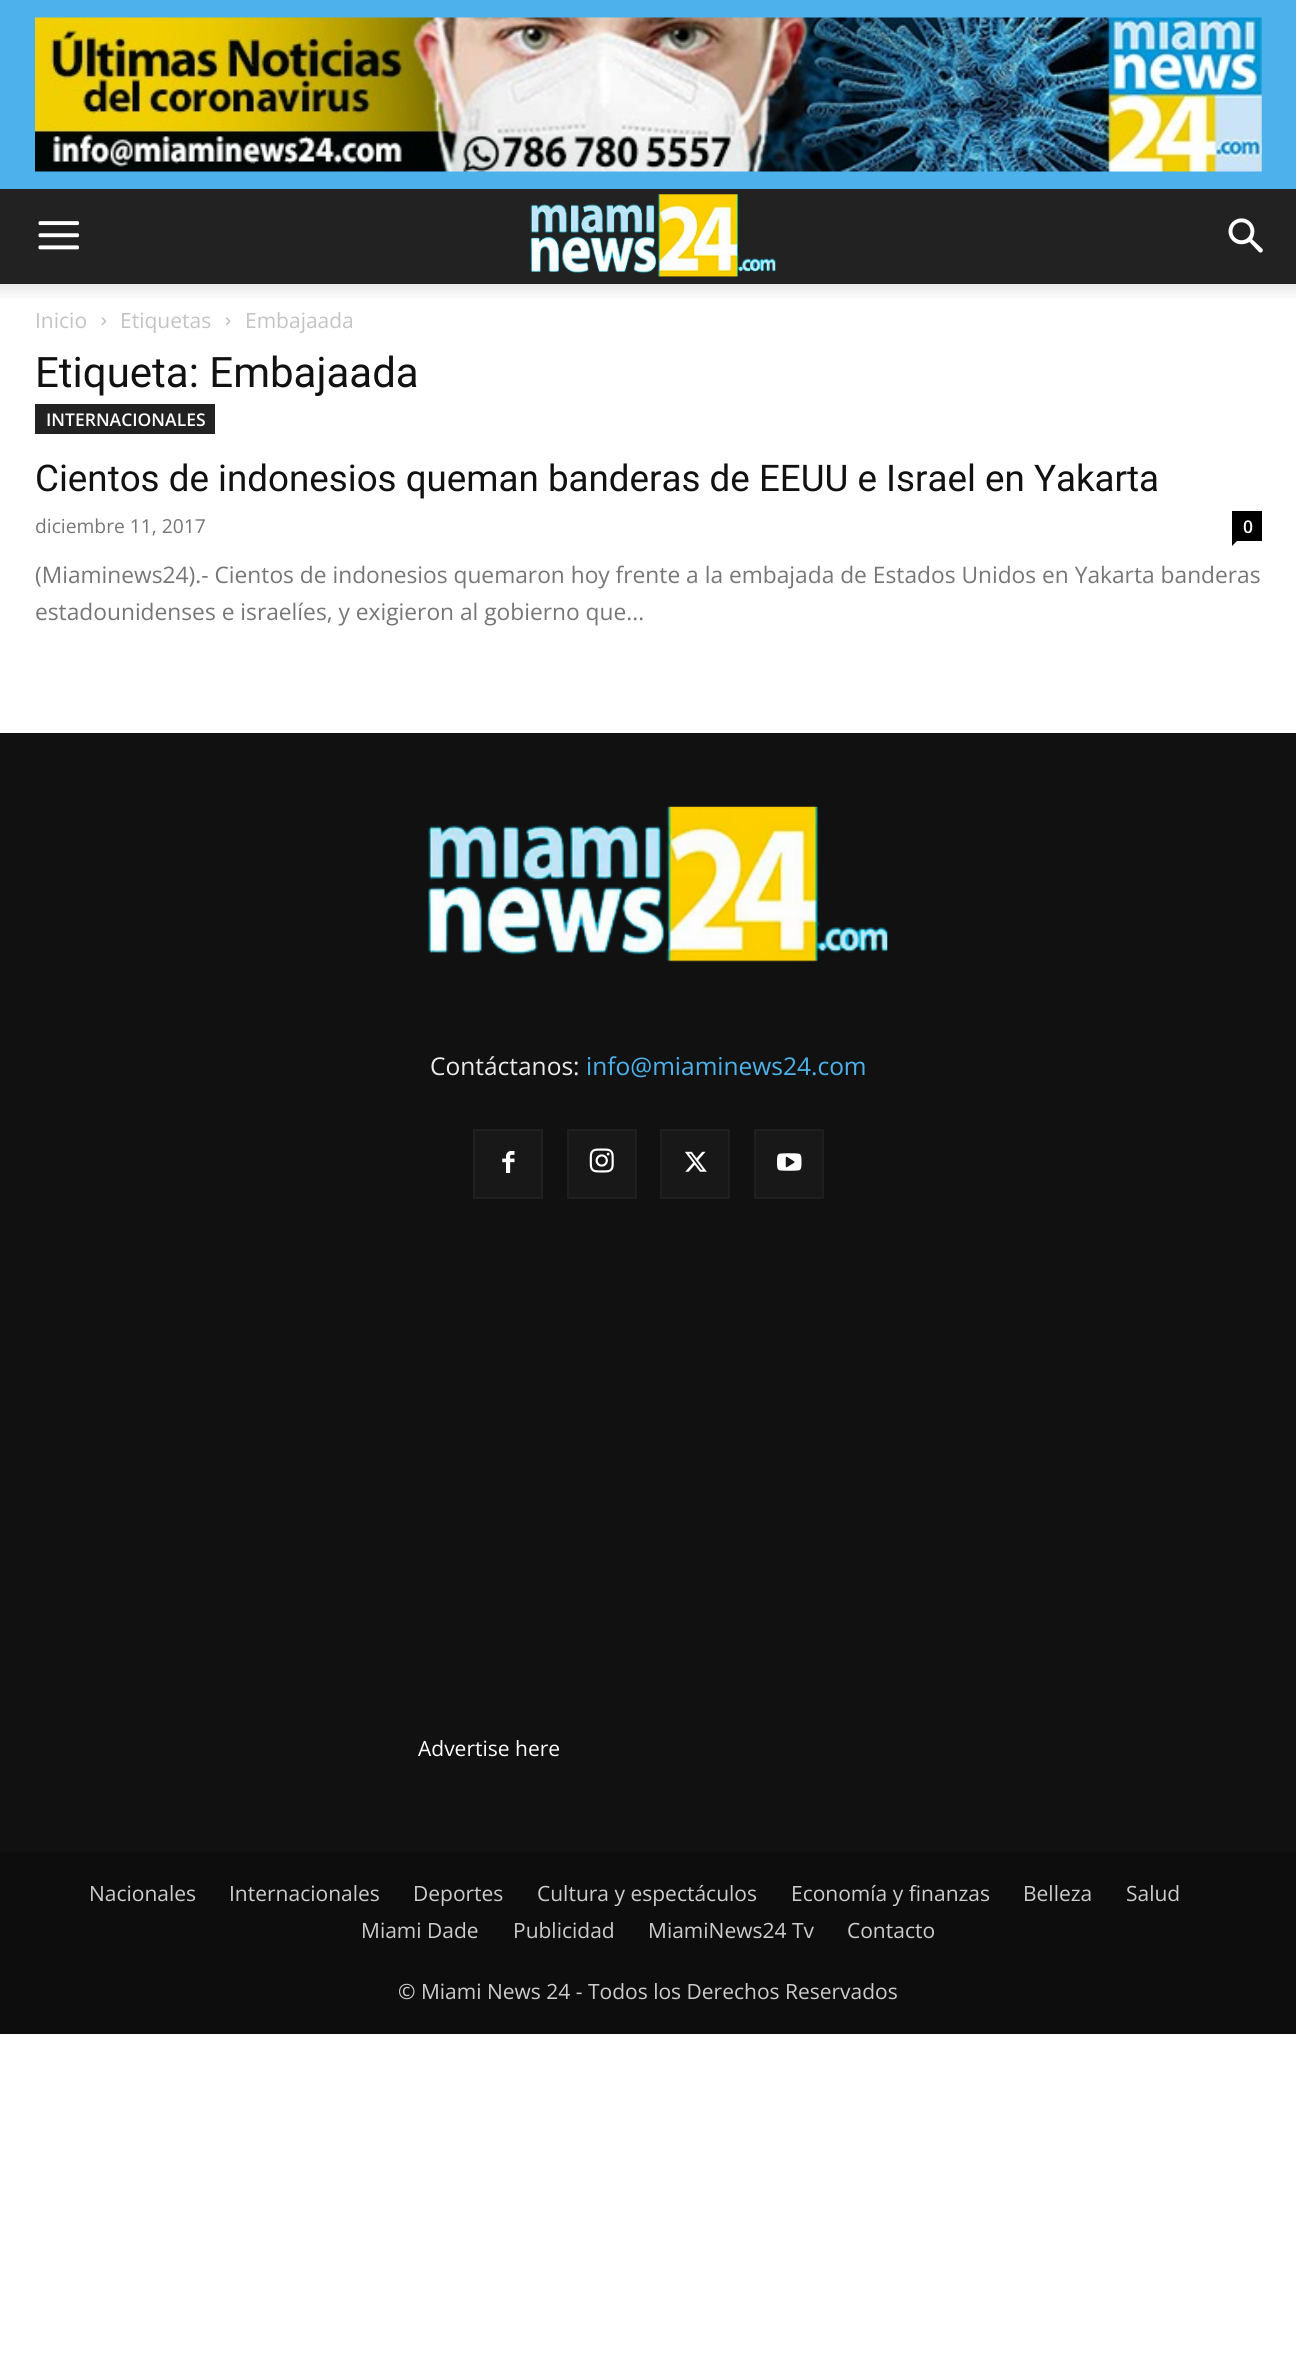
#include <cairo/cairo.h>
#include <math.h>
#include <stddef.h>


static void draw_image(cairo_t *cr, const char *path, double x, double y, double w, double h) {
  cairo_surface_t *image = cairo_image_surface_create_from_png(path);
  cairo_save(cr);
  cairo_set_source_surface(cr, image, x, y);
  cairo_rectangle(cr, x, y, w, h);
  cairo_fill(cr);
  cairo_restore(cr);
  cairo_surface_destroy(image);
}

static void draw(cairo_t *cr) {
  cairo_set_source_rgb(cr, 1, 1, 1);
  cairo_paint(cr);
  cairo_set_source_rgb(cr, 77 / 255.0, 178 / 255.0, 236 / 255.0);
  cairo_rectangle(cr, 0, 0, 1296, 189);
  cairo_fill(cr);
  draw_image(cr, "images/1.png", 35, 17, 1227, 155);
  cairo_set_source_rgb(cr, 34 / 255.0, 34 / 255.0, 34 / 255.0);
  cairo_rectangle(cr, 0, 189, 1296, 95);
  cairo_fill(cr);
  draw_image(cr, "images/2.png", 38, 221, 41, 29);
  draw_image(cr, "images/3.png", 530, 194, 246, 83);
  draw_image(cr, "images/4.png", 1228, 218, 35, 35);
  draw_image(cr, "images/5.png", 0, 284, 1296, 14);
  draw_image(cr, "images/6.png", 101, 317, 6, 9);
  draw_image(cr, "images/7.png", 225, 317, 6, 9);
  cairo_rectangle(cr, 35, 404, 180, 30);
  cairo_fill(cr);
  cairo_set_source_rgb(cr, 0, 0, 0);
  cairo_rectangle(cr, 1232, 511, 30, 30);
  cairo_fill(cr);
  cairo_new_path(cr);
  cairo_move_to(cr, 1232, 541);
  cairo_line_to(cr, 1237, 541);
  cairo_line_to(cr, 1232, 546);
  cairo_close_path(cr);
  cairo_fill(cr);
  cairo_set_source_rgb(cr, 17 / 255.0, 17 / 255.0, 17 / 255.0);
  cairo_rectangle(cr, 0, 733, 1296, 1119);
  cairo_fill(cr);
  draw_image(cr, "images/8.png", 427, 806, 461, 156);
  cairo_set_source_rgb(cr, 24 / 255.0, 24 / 255.0, 24 / 255.0);
  cairo_rectangle(cr, 475, 1131, 66, 66);
  cairo_fill(cr);
  draw_image(cr, "images/9.png", 502, 1151, 13, 22);
  cairo_rectangle(cr, 474, 1130, 68, 68);
  cairo_set_source_rgb(cr, 31 / 255.0, 31 / 255.0, 31 / 255.0);
  cairo_stroke(cr);
  cairo_set_source_rgb(cr, 24 / 255.0, 24 / 255.0, 24 / 255.0);
  cairo_rectangle(cr, 569, 1131, 66, 66);
  cairo_fill(cr);
  draw_image(cr, "images/10.png", 589, 1148, 25, 25);
  cairo_rectangle(cr, 568, 1130, 68, 68);
  cairo_set_source_rgb(cr, 31 / 255.0, 31 / 255.0, 31 / 255.0);
  cairo_stroke(cr);
  cairo_set_source_rgb(cr, 24 / 255.0, 24 / 255.0, 24 / 255.0);
  cairo_rectangle(cr, 662, 1131, 66, 66);
  cairo_fill(cr);
  draw_image(cr, "images/11.png", 684, 1151, 23, 21);
  cairo_rectangle(cr, 661, 1130, 68, 68);
  cairo_set_source_rgb(cr, 31 / 255.0, 31 / 255.0, 31 / 255.0);
  cairo_stroke(cr);
  cairo_set_source_rgb(cr, 24 / 255.0, 24 / 255.0, 24 / 255.0);
  cairo_rectangle(cr, 756, 1131, 66, 66);
  cairo_fill(cr);
  draw_image(cr, "images/12.png", 777, 1153, 25, 18);
  cairo_rectangle(cr, 755, 1130, 68, 68);
  cairo_set_source_rgb(cr, 31 / 255.0, 31 / 255.0, 31 / 255.0);
  cairo_stroke(cr);
  cairo_set_source_rgb(cr, 13 / 255.0, 13 / 255.0, 13 / 255.0);
  cairo_rectangle(cr, 0, 1852, 1296, 182);
  cairo_fill(cr);
  cairo_select_font_face(cr, "Open Sans", CAIRO_FONT_SLANT_NORMAL, CAIRO_FONT_WEIGHT_NORMAL);
  cairo_set_font_size(cr, 21);
  cairo_set_source_rgb(cr, 195 / 255.0, 195 / 255.0, 195 / 255.0);
  cairo_move_to(cr, 35, 328);
  cairo_show_text(cr, "Inicio");
  cairo_move_to(cr, 120, 328);
  cairo_show_text(cr, "Etiquetas");
  cairo_move_to(cr, 245, 328);
  cairo_show_text(cr, "Embajaada");
  cairo_select_font_face(cr, "Roboto", CAIRO_FONT_SLANT_NORMAL, CAIRO_FONT_WEIGHT_NORMAL);
  cairo_set_font_size(cr, 42);
  cairo_set_source_rgb(cr, 17 / 255.0, 17 / 255.0, 17 / 255.0);
  cairo_move_to(cr, 35, 387);
  cairo_show_text(cr, "Etiqueta: Embajaada");
  cairo_select_font_face(cr, "Open Sans SemiBold", CAIRO_FONT_SLANT_NORMAL, CAIRO_FONT_WEIGHT_NORMAL);
  cairo_set_font_size(cr, 17.5);
  cairo_set_source_rgb(cr, 1, 1, 1);
  cairo_move_to(cr, 46, 426);
  cairo_show_text(cr, "INTERNACIONALES");
  cairo_select_font_face(cr, "Roboto", CAIRO_FONT_SLANT_NORMAL, CAIRO_FONT_WEIGHT_NORMAL);
  cairo_set_font_size(cr, 36.75);
  cairo_set_source_rgb(cr, 17 / 255.0, 17 / 255.0, 17 / 255.0);
  cairo_move_to(cr, 35, 491);
  cairo_show_text(cr, "Cientos de indonesios queman banderas de EEUU e Israel en Yakarta");
  cairo_select_font_face(cr, "Open Sans", CAIRO_FONT_SLANT_NORMAL, CAIRO_FONT_WEIGHT_NORMAL);
  cairo_set_font_size(cr, 19.25);
  cairo_set_source_rgb(cr, 118 / 255.0, 118 / 255.0, 118 / 255.0);
  cairo_move_to(cr, 35, 533);
  cairo_show_text(cr, "diciembre 11, 2017");
  cairo_select_font_face(cr, "Open Sans SemiBold", CAIRO_FONT_SLANT_NORMAL, CAIRO_FONT_WEIGHT_NORMAL);
  cairo_set_font_size(cr, 17.5);
  cairo_set_source_rgb(cr, 1, 1, 1);
  cairo_move_to(cr, 1243, 533);
  cairo_show_text(cr, "0");
  cairo_select_font_face(cr, "Open Sans", CAIRO_FONT_SLANT_NORMAL, CAIRO_FONT_WEIGHT_NORMAL);
  cairo_set_font_size(cr, 22.75);
  cairo_set_source_rgb(cr, 118 / 255.0, 118 / 255.0, 118 / 255.0);
  cairo_move_to(cr, 35, 583);
  cairo_show_text(cr, "(Miaminews24).- Cientos de indonesios quemaron hoy frente a la embajada de Estados Unidos en Yakarta banderas");
  cairo_move_to(cr, 35, 620);
  cairo_show_text(cr, "estadounidenses e israelíes, y exigieron al gobierno que...");
  cairo_set_font_size(cr, 24.5);
  cairo_set_source_rgb(cr, 234 / 255.0, 234 / 255.0, 234 / 255.0);
  cairo_move_to(cr, 430, 1075);
  cairo_show_text(cr, "Contáctanos:");
  cairo_set_source_rgb(cr, 77 / 255.0, 178 / 255.0, 236 / 255.0);
  cairo_move_to(cr, 586, 1075);
  cairo_show_text(cr, "info@miaminews24.com");
  cairo_set_font_size(cr, 21);
  cairo_set_source_rgb(cr, 1, 1, 1);
  cairo_move_to(cr, 418, 1756);
  cairo_show_text(cr, "Advertise here");
  cairo_set_source_rgb(cr, 204 / 255.0, 204 / 255.0, 204 / 255.0);
  cairo_move_to(cr, 89, 1901);
  cairo_show_text(cr, "Nacionales");
  cairo_move_to(cr, 229, 1901);
  cairo_show_text(cr, "Internacionales");
  cairo_move_to(cr, 413, 1901);
  cairo_show_text(cr, "Deportes");
  cairo_move_to(cr, 537, 1901);
  cairo_show_text(cr, "Cultura y espectáculos");
  cairo_move_to(cr, 791, 1901);
  cairo_show_text(cr, "Economía y finanzas");
  cairo_move_to(cr, 1023, 1901);
  cairo_show_text(cr, "Belleza");
  cairo_move_to(cr, 1126, 1901);
  cairo_show_text(cr, "Salud");
  cairo_move_to(cr, 361, 1938);
  cairo_show_text(cr, "Miami Dade");
  cairo_move_to(cr, 513, 1938);
  cairo_show_text(cr, "Publicidad");
  cairo_move_to(cr, 648, 1938);
  cairo_show_text(cr, "MiamiNews24 Tv");
  cairo_move_to(cr, 847, 1938);
  cairo_show_text(cr, "Contacto");
  cairo_move_to(cr, 398, 1999);
  cairo_show_text(cr, "© Miami News 24 - Todos los Derechos Reservados");
}

int main(void) {
  cairo_surface_t *surface = cairo_image_surface_create(CAIRO_FORMAT_RGB24, 1296, 2371);
  cairo_t *cr = cairo_create(surface);
  cairo_font_options_t *options = cairo_font_options_create();
  cairo_font_options_set_hint_metrics(options, CAIRO_HINT_METRICS_OFF);
  cairo_font_options_set_hint_style(options, CAIRO_HINT_STYLE_NONE);
  cairo_set_font_options(cr, options);
  cairo_set_miter_limit(cr, 4);
  draw(cr);
  cairo_surface_write_to_png(surface, "out.png");
  cairo_font_options_destroy(options);
  cairo_destroy(cr);
  cairo_surface_destroy(surface);
  return 0;
}
